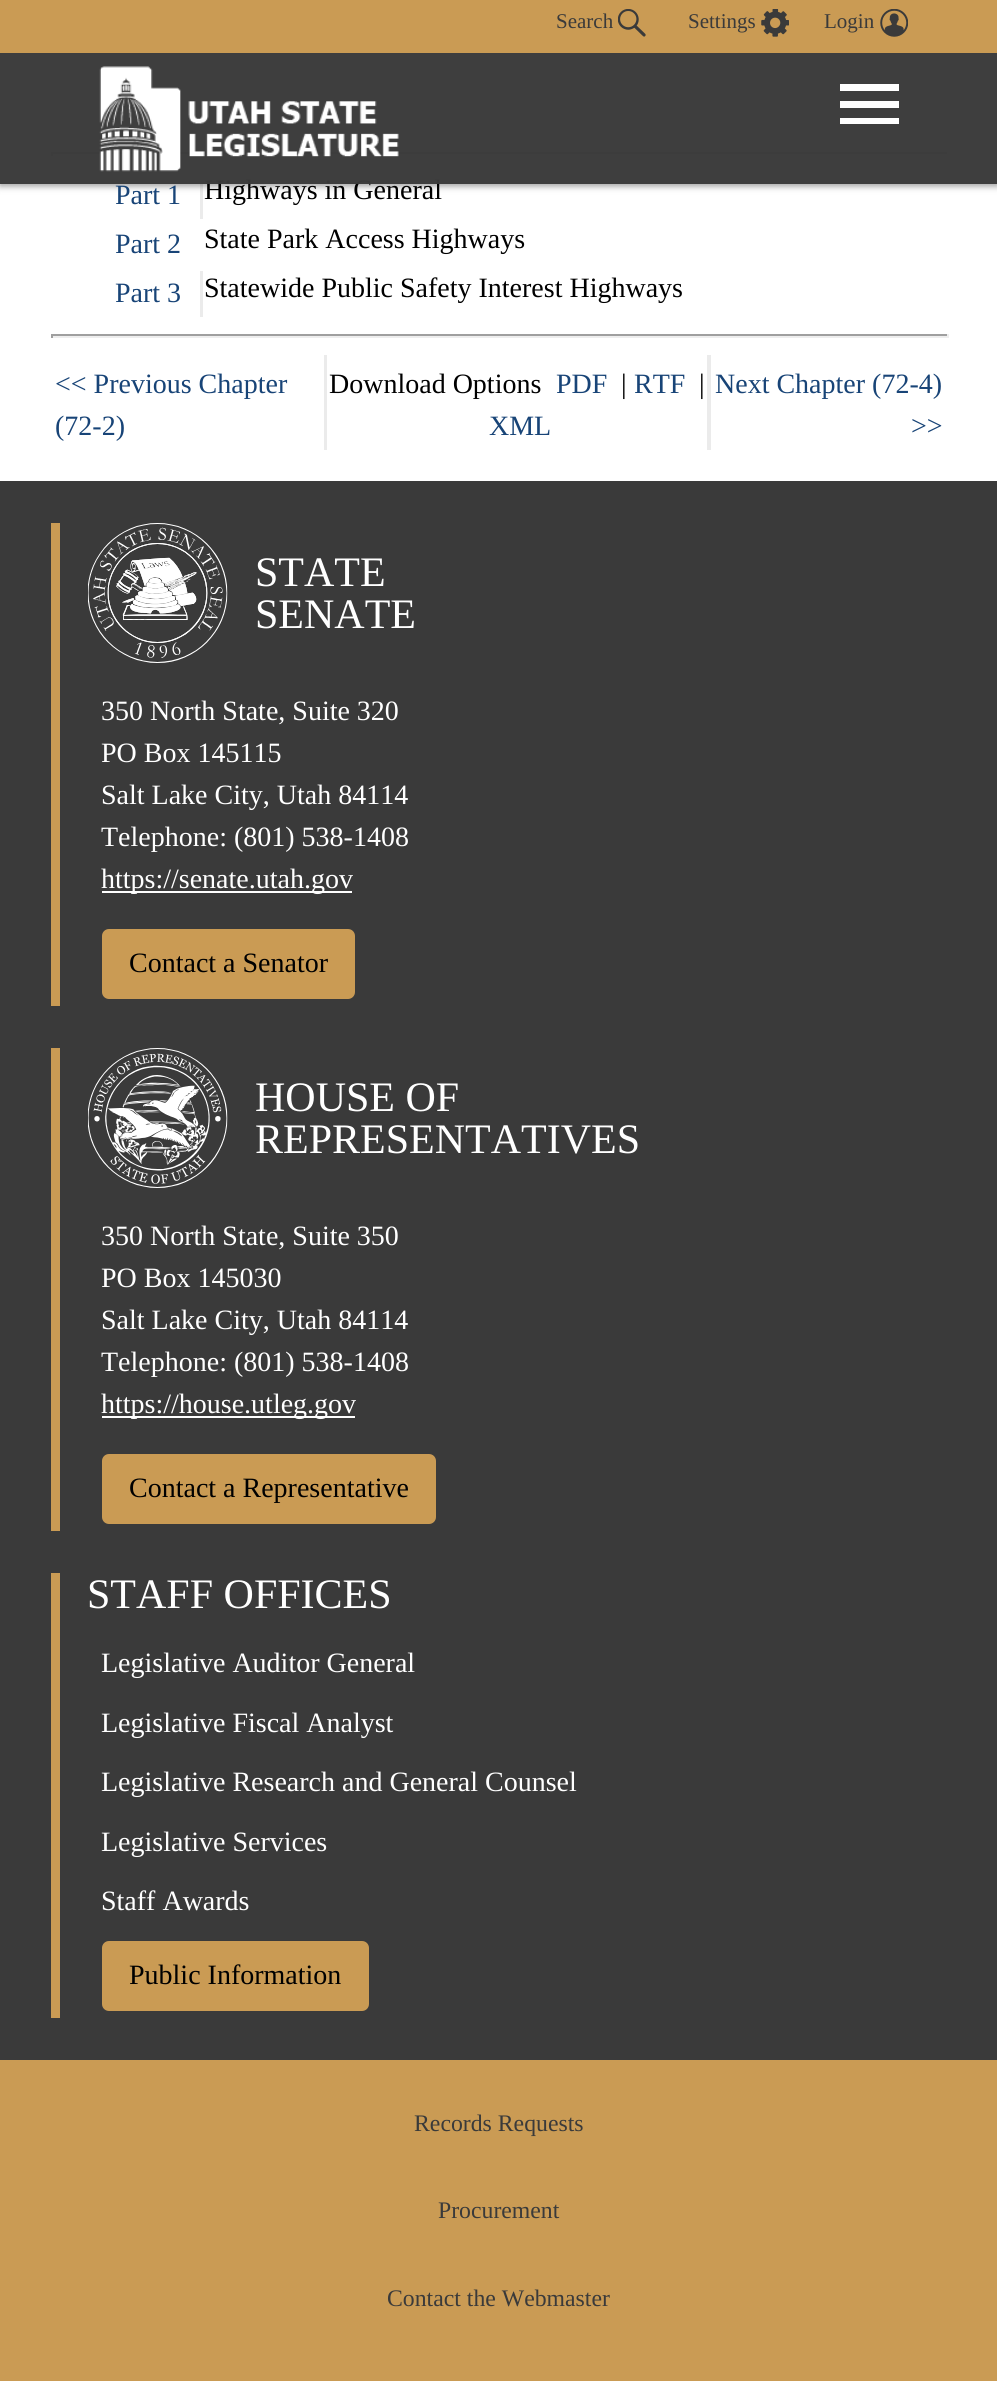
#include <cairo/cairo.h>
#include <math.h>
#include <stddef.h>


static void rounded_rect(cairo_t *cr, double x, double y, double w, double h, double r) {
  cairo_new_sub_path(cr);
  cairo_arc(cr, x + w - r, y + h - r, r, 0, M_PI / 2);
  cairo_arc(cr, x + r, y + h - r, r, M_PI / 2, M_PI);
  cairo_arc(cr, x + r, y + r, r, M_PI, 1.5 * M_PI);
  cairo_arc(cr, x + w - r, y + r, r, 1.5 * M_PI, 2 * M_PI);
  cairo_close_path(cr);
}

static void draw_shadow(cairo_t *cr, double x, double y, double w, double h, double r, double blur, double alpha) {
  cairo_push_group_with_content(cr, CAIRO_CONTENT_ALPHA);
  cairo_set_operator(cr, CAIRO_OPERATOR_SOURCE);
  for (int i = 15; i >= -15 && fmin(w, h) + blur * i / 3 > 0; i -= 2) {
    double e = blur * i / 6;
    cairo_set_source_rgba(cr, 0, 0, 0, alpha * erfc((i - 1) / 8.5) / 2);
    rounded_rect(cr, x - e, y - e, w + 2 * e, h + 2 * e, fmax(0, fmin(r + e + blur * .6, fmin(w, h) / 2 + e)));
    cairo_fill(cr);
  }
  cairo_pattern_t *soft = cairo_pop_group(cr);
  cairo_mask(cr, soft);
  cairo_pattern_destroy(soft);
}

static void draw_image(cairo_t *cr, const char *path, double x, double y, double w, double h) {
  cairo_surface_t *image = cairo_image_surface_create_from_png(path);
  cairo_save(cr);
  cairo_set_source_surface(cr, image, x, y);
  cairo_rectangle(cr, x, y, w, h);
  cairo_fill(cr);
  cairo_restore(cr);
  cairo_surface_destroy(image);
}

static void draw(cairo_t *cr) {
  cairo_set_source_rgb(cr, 1, 1, 1);
  cairo_paint(cr);
  cairo_set_source_rgb(cr, 235 / 255.0, 235 / 255.0, 235 / 255.0);
  cairo_rectangle(cr, 233, 98, 3, 37);
  cairo_fill(cr);
  cairo_set_source_rgb(cr, 159 / 255.0, 159 / 255.0, 159 / 255.0);
  cairo_rectangle(cr, 51, 152, 898, 2);
  cairo_fill(cr);
  cairo_set_source_rgb(cr, 238 / 255.0, 238 / 255.0, 238 / 255.0);
  cairo_rectangle(cr, 947, 152, 2, 4);
  cairo_fill(cr);
  cairo_rectangle(cr, 51, 154, 898, 2);
  cairo_fill(cr);
  cairo_set_source_rgb(cr, 159 / 255.0, 159 / 255.0, 159 / 255.0);
  cairo_rectangle(cr, 51, 152, 2, 4);
  cairo_fill(cr);
  cairo_set_source_rgb(cr, 235 / 255.0, 235 / 255.0, 235 / 255.0);
  cairo_rectangle(cr, 200, 173, 3, 46);
  cairo_fill(cr);
  cairo_save(cr);
  cairo_set_fill_rule(cr, CAIRO_FILL_RULE_EVEN_ODD);
  cairo_new_path(cr);
  cairo_move_to(cr, 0, 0);
  cairo_line_to(cr, 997, 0);
  cairo_line_to(cr, 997, 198);
  cairo_line_to(cr, 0, 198);
  cairo_close_path(cr);
  cairo_move_to(cr, 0, 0);
  cairo_line_to(cr, 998, 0);
  cairo_line_to(cr, 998, 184);
  cairo_line_to(cr, 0, 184);
  cairo_close_path(cr);
  cairo_clip(cr);
  cairo_set_source_rgb(cr, 0, 0, 0);
  draw_shadow(cr, 0, 2, 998, 184, 0, 3.5, 0.4);
  cairo_restore(cr);
  cairo_set_source_rgb(cr, 202 / 255.0, 155 / 255.0, 84 / 255.0);
  cairo_rectangle(cr, 0, 0, 997, 53);
  cairo_fill(cr);
  draw_image(cr, "images/1.png", 618, 9, 28, 28);
  draw_image(cr, "images/2.png", 761, 9, 28, 28);
  draw_image(cr, "images/3.png", 880, 9, 28, 28);
  cairo_set_source_rgb(cr, 235 / 255.0, 235 / 255.0, 235 / 255.0);
  cairo_rectangle(cr, 200, 271, 3, 46);
  cairo_fill(cr);
  cairo_set_source_rgb(cr, 159 / 255.0, 159 / 255.0, 159 / 255.0);
  cairo_rectangle(cr, 51, 334, 898, 2);
  cairo_fill(cr);
  cairo_set_source_rgb(cr, 238 / 255.0, 238 / 255.0, 238 / 255.0);
  cairo_rectangle(cr, 947, 334, 2, 4);
  cairo_fill(cr);
  cairo_rectangle(cr, 51, 336, 898, 2);
  cairo_fill(cr);
  cairo_set_source_rgb(cr, 159 / 255.0, 159 / 255.0, 159 / 255.0);
  cairo_rectangle(cr, 51, 334, 2, 4);
  cairo_fill(cr);
  cairo_set_source_rgb(cr, 235 / 255.0, 235 / 255.0, 235 / 255.0);
  cairo_rectangle(cr, 324, 355, 387, 95);
  cairo_fill(cr);
  cairo_set_source_rgb(cr, 1, 1, 1);
  cairo_rectangle(cr, 327, 355, 380, 95);
  cairo_fill(cr);
  cairo_set_source_rgb(cr, 58 / 255.0, 58 / 255.0, 58 / 255.0);
  cairo_rectangle(cr, 0, 481, 997, 1579);
  cairo_fill(cr);
  cairo_set_source_rgb(cr, 202 / 255.0, 155 / 255.0, 84 / 255.0);
  cairo_rectangle(cr, 51, 523, 9, 483);
  cairo_fill(cr);
  draw_image(cr, "images/5.png", 88, 523, 140, 140);
  cairo_set_source_rgb(cr, 1, 1, 1);
  cairo_rectangle(cr, 102, 891, 250, 2);
  cairo_fill(cr);
  cairo_set_source_rgb(cr, 202 / 255.0, 155 / 255.0, 84 / 255.0);
  rounded_rect(cr, 102, 929, 253, 70, 7);
  cairo_fill(cr);
  cairo_rectangle(cr, 51, 1048, 9, 483);
  cairo_fill(cr);
  draw_image(cr, "images/6.png", 88, 1048, 140, 140);
  cairo_set_source_rgb(cr, 1, 1, 1);
  cairo_rectangle(cr, 102, 1416, 253, 2);
  cairo_fill(cr);
  cairo_set_source_rgb(cr, 202 / 255.0, 155 / 255.0, 84 / 255.0);
  rounded_rect(cr, 102, 1454, 334, 70, 7);
  cairo_fill(cr);
  cairo_rectangle(cr, 51, 1573, 9, 445);
  cairo_fill(cr);
  rounded_rect(cr, 102, 1941, 267, 70, 7);
  cairo_fill(cr);
  cairo_rectangle(cr, 0, 2060, 997, 321);
  cairo_fill(cr);
  cairo_select_font_face(cr, "Liberation Serif", CAIRO_FONT_SLANT_NORMAL, CAIRO_FONT_WEIGHT_NORMAL);
  cairo_set_font_size(cr, 21);
  cairo_set_source_rgb(cr, 58 / 255.0, 58 / 255.0, 58 / 255.0);
  cairo_move_to(cr, 556, 28);
  cairo_show_text(cr, "Search");
  cairo_move_to(cr, 688, 28);
  cairo_show_text(cr, "Settings");
  cairo_move_to(cr, 824, 28);
  cairo_show_text(cr, "Login");
  cairo_set_font_size(cr, 28);
  cairo_set_source_rgb(cr, 24 / 255.0, 68 / 255.0, 119 / 255.0);
  cairo_move_to(cr, 115, 204);
  cairo_show_text(cr, "Part 1");
  cairo_set_source_rgb(cr, 0, 0, 0);
  cairo_move_to(cr, 204, 199);
  cairo_show_text(cr, "Highways in General");
  cairo_set_source_rgba(cr, 58 / 255.0, 58 / 255.0, 58 / 255.0, 0.98);
  cairo_rectangle(cr, 0, 53, 997, 131);
  cairo_fill(cr);
  draw_image(cr, "images/4.png", 99, 66, 300, 106);
  cairo_save(cr);
  cairo_rectangle(cr, 840, 84, 60, 40);
  cairo_clip(cr);
  cairo_set_source_rgb(cr, 1, 1, 1);
  cairo_new_path(cr);
  cairo_move_to(cr, 840, 101);
  cairo_line_to(cr, 899, 101);
  cairo_line_to(cr, 899, 108);
  cairo_line_to(cr, 840, 108);
  cairo_close_path(cr);
  cairo_move_to(cr, 840, 84);
  cairo_line_to(cr, 899, 84);
  cairo_line_to(cr, 899, 91);
  cairo_line_to(cr, 840, 91);
  cairo_close_path(cr);
  cairo_move_to(cr, 840, 118);
  cairo_line_to(cr, 899, 118);
  cairo_line_to(cr, 899, 125);
  cairo_line_to(cr, 840, 125);
  cairo_close_path(cr);
  cairo_fill(cr);
  cairo_restore(cr);
  cairo_set_source_rgb(cr, 24 / 255.0, 68 / 255.0, 119 / 255.0);
  cairo_move_to(cr, 115, 253);
  cairo_show_text(cr, "Part 2");
  cairo_set_source_rgb(cr, 0, 0, 0);
  cairo_move_to(cr, 204, 248);
  cairo_show_text(cr, "State Park Access Highways");
  cairo_set_source_rgb(cr, 24 / 255.0, 68 / 255.0, 119 / 255.0);
  cairo_move_to(cr, 115, 302);
  cairo_show_text(cr, "Part 3");
  cairo_set_source_rgb(cr, 0, 0, 0);
  cairo_move_to(cr, 204, 297);
  cairo_show_text(cr, "Statewide Public Safety Interest Highways");
  cairo_set_source_rgb(cr, 24 / 255.0, 68 / 255.0, 119 / 255.0);
  cairo_move_to(cr, 55, 393);
  cairo_show_text(cr, "<< Previous Chapter");
  cairo_move_to(cr, 55, 435);
  cairo_show_text(cr, "(72-2)");
  cairo_set_source_rgb(cr, 0, 0, 0);
  cairo_move_to(cr, 329, 393);
  cairo_show_text(cr, "Download Options");
  cairo_set_source_rgb(cr, 24 / 255.0, 68 / 255.0, 119 / 255.0);
  cairo_move_to(cr, 556, 393);
  cairo_show_text(cr, "PDF");
  cairo_set_source_rgb(cr, 0, 0, 0);
  cairo_move_to(cr, 621, 393);
  cairo_show_text(cr, "|");
  cairo_set_source_rgb(cr, 24 / 255.0, 68 / 255.0, 119 / 255.0);
  cairo_move_to(cr, 634, 393);
  cairo_show_text(cr, "RTF");
  cairo_set_source_rgb(cr, 0, 0, 0);
  cairo_move_to(cr, 699, 393);
  cairo_show_text(cr, "|");
  cairo_set_source_rgb(cr, 24 / 255.0, 68 / 255.0, 119 / 255.0);
  cairo_move_to(cr, 489, 435);
  cairo_show_text(cr, "XML");
  cairo_move_to(cr, 715, 393);
  cairo_show_text(cr, "Next Chapter (72-4)");
  cairo_move_to(cr, 911, 435);
  cairo_show_text(cr, ">>");
  cairo_set_font_size(cr, 42);
  cairo_set_source_rgb(cr, 1, 1, 1);
  cairo_move_to(cr, 255, 586);
  cairo_show_text(cr, "STATE");
  cairo_move_to(cr, 255, 628);
  cairo_show_text(cr, "SENATE");
  cairo_set_font_size(cr, 28);
  cairo_move_to(cr, 101, 720);
  cairo_show_text(cr, "350 North State, Suite 320");
  cairo_move_to(cr, 101, 762);
  cairo_show_text(cr, "PO Box 145115");
  cairo_move_to(cr, 101, 804);
  cairo_show_text(cr, "Salt Lake City, Utah 84114");
  cairo_move_to(cr, 101, 846);
  cairo_show_text(cr, "Telephone: (801) 538-1408");
  cairo_move_to(cr, 101, 888);
  cairo_show_text(cr, "https://senate.utah.gov");
  cairo_set_source_rgb(cr, 0, 0, 0);
  cairo_move_to(cr, 129, 972);
  cairo_show_text(cr, "Contact a Senator");
  cairo_set_font_size(cr, 42);
  cairo_set_source_rgb(cr, 1, 1, 1);
  cairo_move_to(cr, 255, 1111);
  cairo_show_text(cr, "HOUSE OF");
  cairo_move_to(cr, 255, 1153);
  cairo_show_text(cr, "REPRESENTATIVES");
  cairo_set_font_size(cr, 28);
  cairo_move_to(cr, 101, 1245);
  cairo_show_text(cr, "350 North State, Suite 350");
  cairo_move_to(cr, 101, 1287);
  cairo_show_text(cr, "PO Box 145030");
  cairo_move_to(cr, 101, 1329);
  cairo_show_text(cr, "Salt Lake City, Utah 84114");
  cairo_move_to(cr, 101, 1371);
  cairo_show_text(cr, "Telephone: (801) 538-1408");
  cairo_move_to(cr, 101, 1413);
  cairo_show_text(cr, "https://house.utleg.gov");
  cairo_set_source_rgb(cr, 0, 0, 0);
  cairo_move_to(cr, 129, 1497);
  cairo_show_text(cr, "Contact a Representative");
  cairo_set_font_size(cr, 42);
  cairo_set_source_rgb(cr, 1, 1, 1);
  cairo_move_to(cr, 87, 1608);
  cairo_show_text(cr, "STAFF OFFICES");
  cairo_set_font_size(cr, 28);
  cairo_move_to(cr, 101, 1672);
  cairo_show_text(cr, "Legislative Auditor General");
  cairo_move_to(cr, 101, 1732);
  cairo_show_text(cr, "Legislative Fiscal Analyst");
  cairo_move_to(cr, 101, 1791);
  cairo_show_text(cr, "Legislative Research and General Counsel");
  cairo_move_to(cr, 101, 1851);
  cairo_show_text(cr, "Legislative Services");
  cairo_move_to(cr, 101, 1910);
  cairo_show_text(cr, "Staff Awards");
  cairo_set_source_rgb(cr, 0, 0, 0);
  cairo_move_to(cr, 129, 1984);
  cairo_show_text(cr, "Public Information");
  cairo_set_font_size(cr, 23.75);
  cairo_set_source_rgb(cr, 58 / 255.0, 58 / 255.0, 58 / 255.0);
  cairo_move_to(cr, 414, 2131);
  cairo_show_text(cr, "Records Requests");
  cairo_move_to(cr, 438, 2218);
  cairo_show_text(cr, "Procurement");
  cairo_move_to(cr, 387, 2306);
  cairo_show_text(cr, "Contact the Webmaster");
}

int main(void) {
  cairo_surface_t *surface = cairo_image_surface_create(CAIRO_FORMAT_RGB24, 997, 2381);
  cairo_t *cr = cairo_create(surface);
  cairo_font_options_t *options = cairo_font_options_create();
  cairo_font_options_set_hint_metrics(options, CAIRO_HINT_METRICS_OFF);
  cairo_font_options_set_hint_style(options, CAIRO_HINT_STYLE_NONE);
  cairo_set_font_options(cr, options);
  cairo_set_miter_limit(cr, 4);
  draw(cr);
  cairo_surface_write_to_png(surface, "out.png");
  cairo_font_options_destroy(options);
  cairo_destroy(cr);
  cairo_surface_destroy(surface);
  return 0;
}
